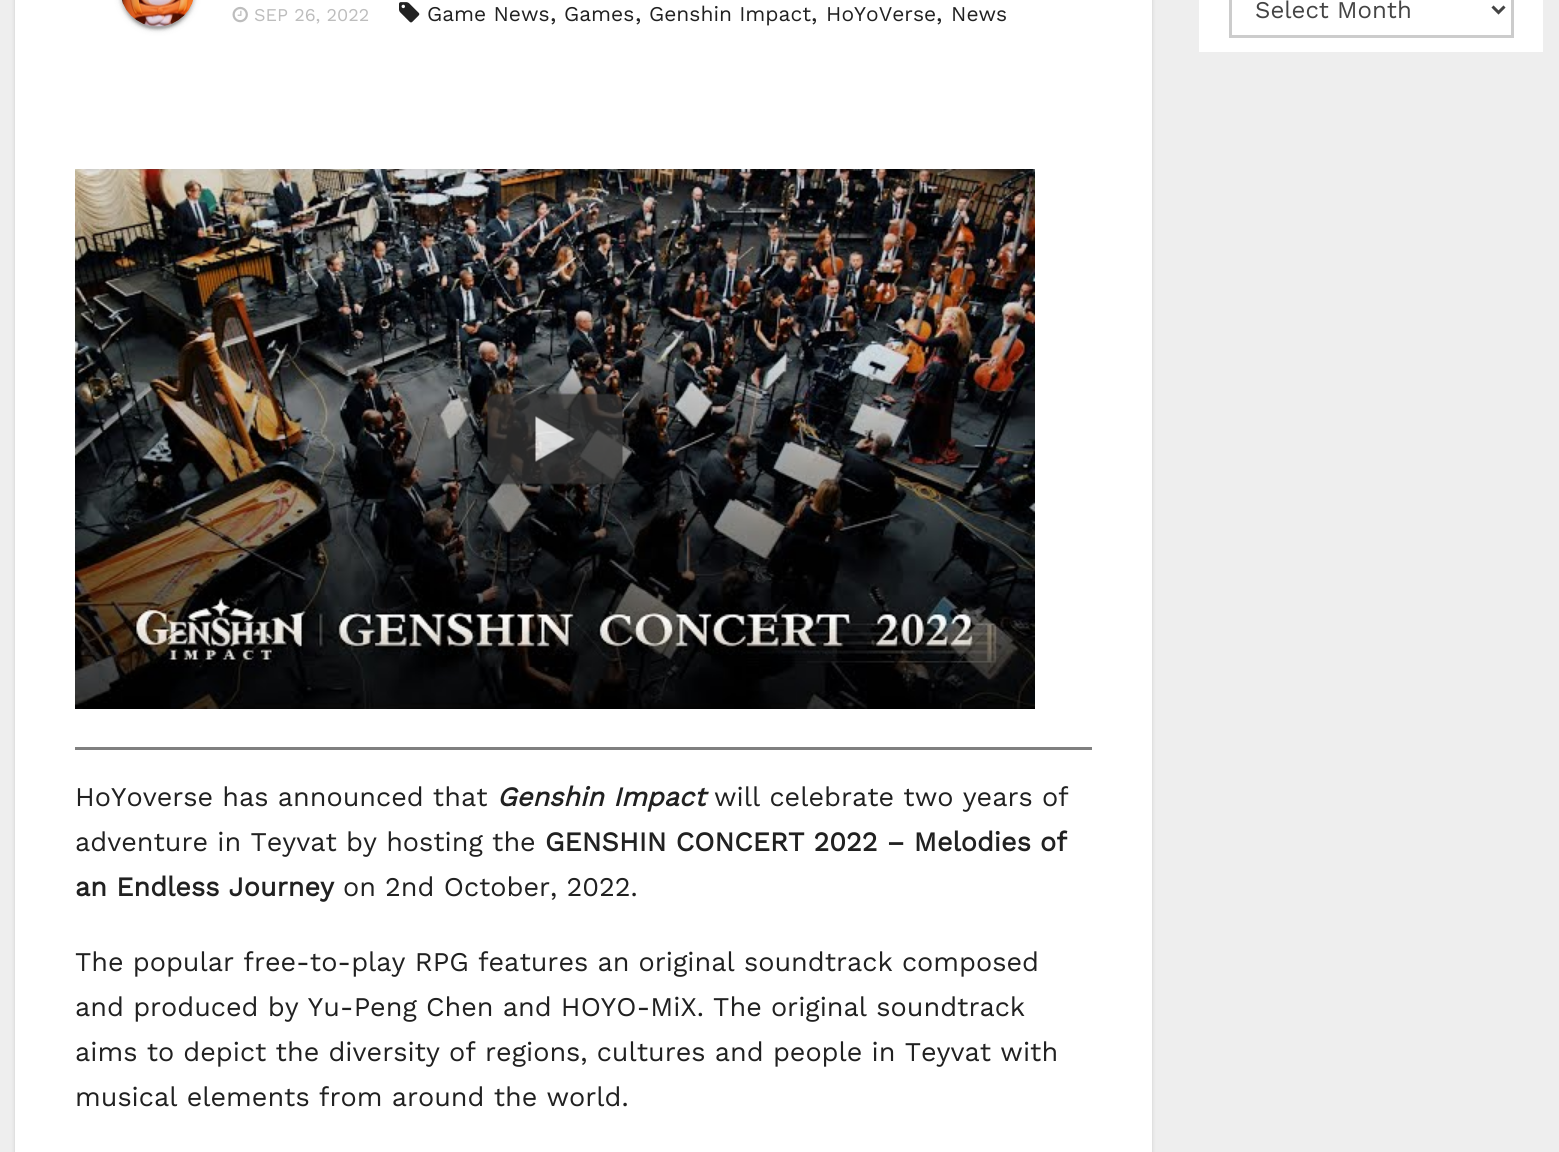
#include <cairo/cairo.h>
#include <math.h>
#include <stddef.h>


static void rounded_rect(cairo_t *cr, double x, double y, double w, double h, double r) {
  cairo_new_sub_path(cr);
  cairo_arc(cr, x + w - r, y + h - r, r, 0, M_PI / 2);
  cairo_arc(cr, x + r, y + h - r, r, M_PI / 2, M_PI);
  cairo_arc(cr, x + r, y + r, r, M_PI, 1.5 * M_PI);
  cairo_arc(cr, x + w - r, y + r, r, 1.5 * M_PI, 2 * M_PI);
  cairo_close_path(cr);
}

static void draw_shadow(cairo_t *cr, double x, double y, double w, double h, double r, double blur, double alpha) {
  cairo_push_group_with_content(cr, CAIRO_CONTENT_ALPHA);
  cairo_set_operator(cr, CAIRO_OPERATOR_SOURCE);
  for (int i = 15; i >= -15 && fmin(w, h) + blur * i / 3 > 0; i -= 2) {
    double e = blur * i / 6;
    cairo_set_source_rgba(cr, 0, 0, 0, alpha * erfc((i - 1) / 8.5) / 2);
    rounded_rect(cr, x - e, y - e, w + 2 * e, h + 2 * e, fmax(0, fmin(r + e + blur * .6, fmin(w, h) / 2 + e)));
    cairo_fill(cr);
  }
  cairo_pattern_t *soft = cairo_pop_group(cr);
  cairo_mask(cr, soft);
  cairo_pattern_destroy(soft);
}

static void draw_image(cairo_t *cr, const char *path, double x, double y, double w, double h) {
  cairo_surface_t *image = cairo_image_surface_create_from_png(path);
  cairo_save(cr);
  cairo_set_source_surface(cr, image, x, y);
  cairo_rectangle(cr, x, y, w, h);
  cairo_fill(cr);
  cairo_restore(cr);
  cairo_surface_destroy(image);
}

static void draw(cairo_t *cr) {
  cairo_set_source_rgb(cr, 238 / 255.0, 238 / 255.0, 238 / 255.0);
  cairo_paint(cr);
  cairo_set_source_rgb(cr, 0, 0, 0);
  draw_shadow(cr, 15, -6, 1137, 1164, 0, 2, 0.15);
  cairo_set_source_rgb(cr, 1, 1, 1);
  cairo_rectangle(cr, 15, 0, 1137, 1152);
  cairo_fill(cr);
  cairo_set_source_rgb(cr, 0, 0, 0);
  draw_shadow(cr, 120, -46, 75, 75, 37.5, 4, 0.12);
  draw_shadow(cr, 123, -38, 69, 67, 34.5, 1, 0.2);
  draw_shadow(cr, 120, -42, 75, 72, 37.5, 1.5, 0.14);
  draw_image(cr, "images/1.png", 121, 0, 73, 27);
  draw_image(cr, "images/2.png", 232, 6, 16, 17);
  draw_image(cr, "images/3.png", 399, 2, 21, 21);
  draw_image(cr, "images/4.png", 75, 169, 960, 540);
  cairo_set_source_rgb(cr, 128 / 255.0, 128 / 255.0, 128 / 255.0);
  cairo_rectangle(cr, 75, 747, 1017, 3);
  cairo_fill(cr);
  cairo_set_source_rgb(cr, 1, 1, 1);
  cairo_rectangle(cr, 1199, 0, 344, 52);
  cairo_fill(cr);
  cairo_rectangle(cr, 1230.5, -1.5, 282, 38);
  cairo_set_source_rgb(cr, 204 / 255.0, 204 / 255.0, 204 / 255.0);
  cairo_set_line_width(cr, 3);
  cairo_stroke(cr);
  cairo_new_path(cr);
  cairo_move_to(cr, 1492.5, 6.5);
  cairo_line_to(cr, 1498.5, 12.5);
  cairo_line_to(cr, 1504.5, 6.5);
  cairo_set_source_rgb(cr, 68 / 255.0, 68 / 255.0, 68 / 255.0);
  cairo_stroke(cr);
  cairo_select_font_face(cr, "Work Sans", CAIRO_FONT_SLANT_NORMAL, CAIRO_FONT_WEIGHT_NORMAL);
  cairo_set_font_size(cr, 18);
  cairo_set_source_rgb(cr, 189 / 255.0, 189 / 255.0, 189 / 255.0);
  cairo_move_to(cr, 254, 21);
  cairo_show_text(cr, "SEP 26, 2022");
  cairo_set_font_size(cr, 21);
  cairo_set_source_rgb(cr, 33 / 255.0, 33 / 255.0, 33 / 255.0);
  cairo_move_to(cr, 427, 21);
  cairo_show_text(cr, "Game News");
  cairo_set_font_size(cr, 24);
  cairo_move_to(cr, 550, 21);
  cairo_show_text(cr, ",");
  cairo_set_font_size(cr, 21);
  cairo_move_to(cr, 564, 21);
  cairo_show_text(cr, "Games");
  cairo_set_font_size(cr, 24);
  cairo_move_to(cr, 635, 21);
  cairo_show_text(cr, ",");
  cairo_set_font_size(cr, 21);
  cairo_move_to(cr, 649, 21);
  cairo_show_text(cr, "Genshin Impact");
  cairo_set_font_size(cr, 24);
  cairo_move_to(cr, 811, 21);
  cairo_show_text(cr, ",");
  cairo_set_font_size(cr, 21);
  cairo_move_to(cr, 826, 21);
  cairo_show_text(cr, "HoYoVerse");
  cairo_set_font_size(cr, 24);
  cairo_move_to(cr, 936, 21);
  cairo_show_text(cr, ",");
  cairo_set_font_size(cr, 21);
  cairo_move_to(cr, 951, 21);
  cairo_show_text(cr, "News");
  cairo_set_font_size(cr, 27);
  cairo_move_to(cr, 75, 806);
  cairo_show_text(cr, "HoYoverse has announced that");
  cairo_select_font_face(cr, "Work Sans", CAIRO_FONT_SLANT_ITALIC, CAIRO_FONT_WEIGHT_BOLD);
  cairo_move_to(cr, 497, 806);
  cairo_show_text(cr, "Genshin Impact");
  cairo_select_font_face(cr, "Work Sans", CAIRO_FONT_SLANT_NORMAL, CAIRO_FONT_WEIGHT_NORMAL);
  cairo_move_to(cr, 714, 806);
  cairo_show_text(cr, "will celebrate two years of");
  cairo_move_to(cr, 75, 851);
  cairo_show_text(cr, "adventure in Teyvat by hosting the");
  cairo_select_font_face(cr, "Work Sans", CAIRO_FONT_SLANT_NORMAL, CAIRO_FONT_WEIGHT_BOLD);
  cairo_move_to(cr, 545, 851);
  cairo_show_text(cr, "GENSHIN CONCERT 2022 – Melodies of");
  cairo_move_to(cr, 75, 896);
  cairo_show_text(cr, "an Endless Journey");
  cairo_select_font_face(cr, "Work Sans", CAIRO_FONT_SLANT_NORMAL, CAIRO_FONT_WEIGHT_NORMAL);
  cairo_move_to(cr, 343, 896);
  cairo_show_text(cr, "on 2nd October, 2022.");
  cairo_move_to(cr, 75, 971);
  cairo_show_text(cr, "The popular free-to-play RPG features an original soundtrack composed");
  cairo_move_to(cr, 75, 1016);
  cairo_show_text(cr, "and produced by Yu-Peng Chen and HOYO-MiX. The original soundtrack");
  cairo_move_to(cr, 75, 1061);
  cairo_show_text(cr, "aims to depict the diversity of regions, cultures and people in Teyvat with");
  cairo_move_to(cr, 75, 1106);
  cairo_show_text(cr, "musical elements from around the world.");
  cairo_set_font_size(cr, 24);
  cairo_set_source_rgb(cr, 68 / 255.0, 68 / 255.0, 68 / 255.0);
  cairo_move_to(cr, 1255, 18);
  cairo_show_text(cr, "Select Month");
}

int main(void) {
  cairo_surface_t *surface = cairo_image_surface_create(CAIRO_FORMAT_RGB24, 1559, 1152);
  cairo_t *cr = cairo_create(surface);
  cairo_font_options_t *options = cairo_font_options_create();
  cairo_font_options_set_hint_metrics(options, CAIRO_HINT_METRICS_OFF);
  cairo_font_options_set_hint_style(options, CAIRO_HINT_STYLE_NONE);
  cairo_set_font_options(cr, options);
  cairo_set_miter_limit(cr, 4);
  draw(cr);
  cairo_surface_write_to_png(surface, "out.png");
  cairo_font_options_destroy(options);
  cairo_destroy(cr);
  cairo_surface_destroy(surface);
  return 0;
}
